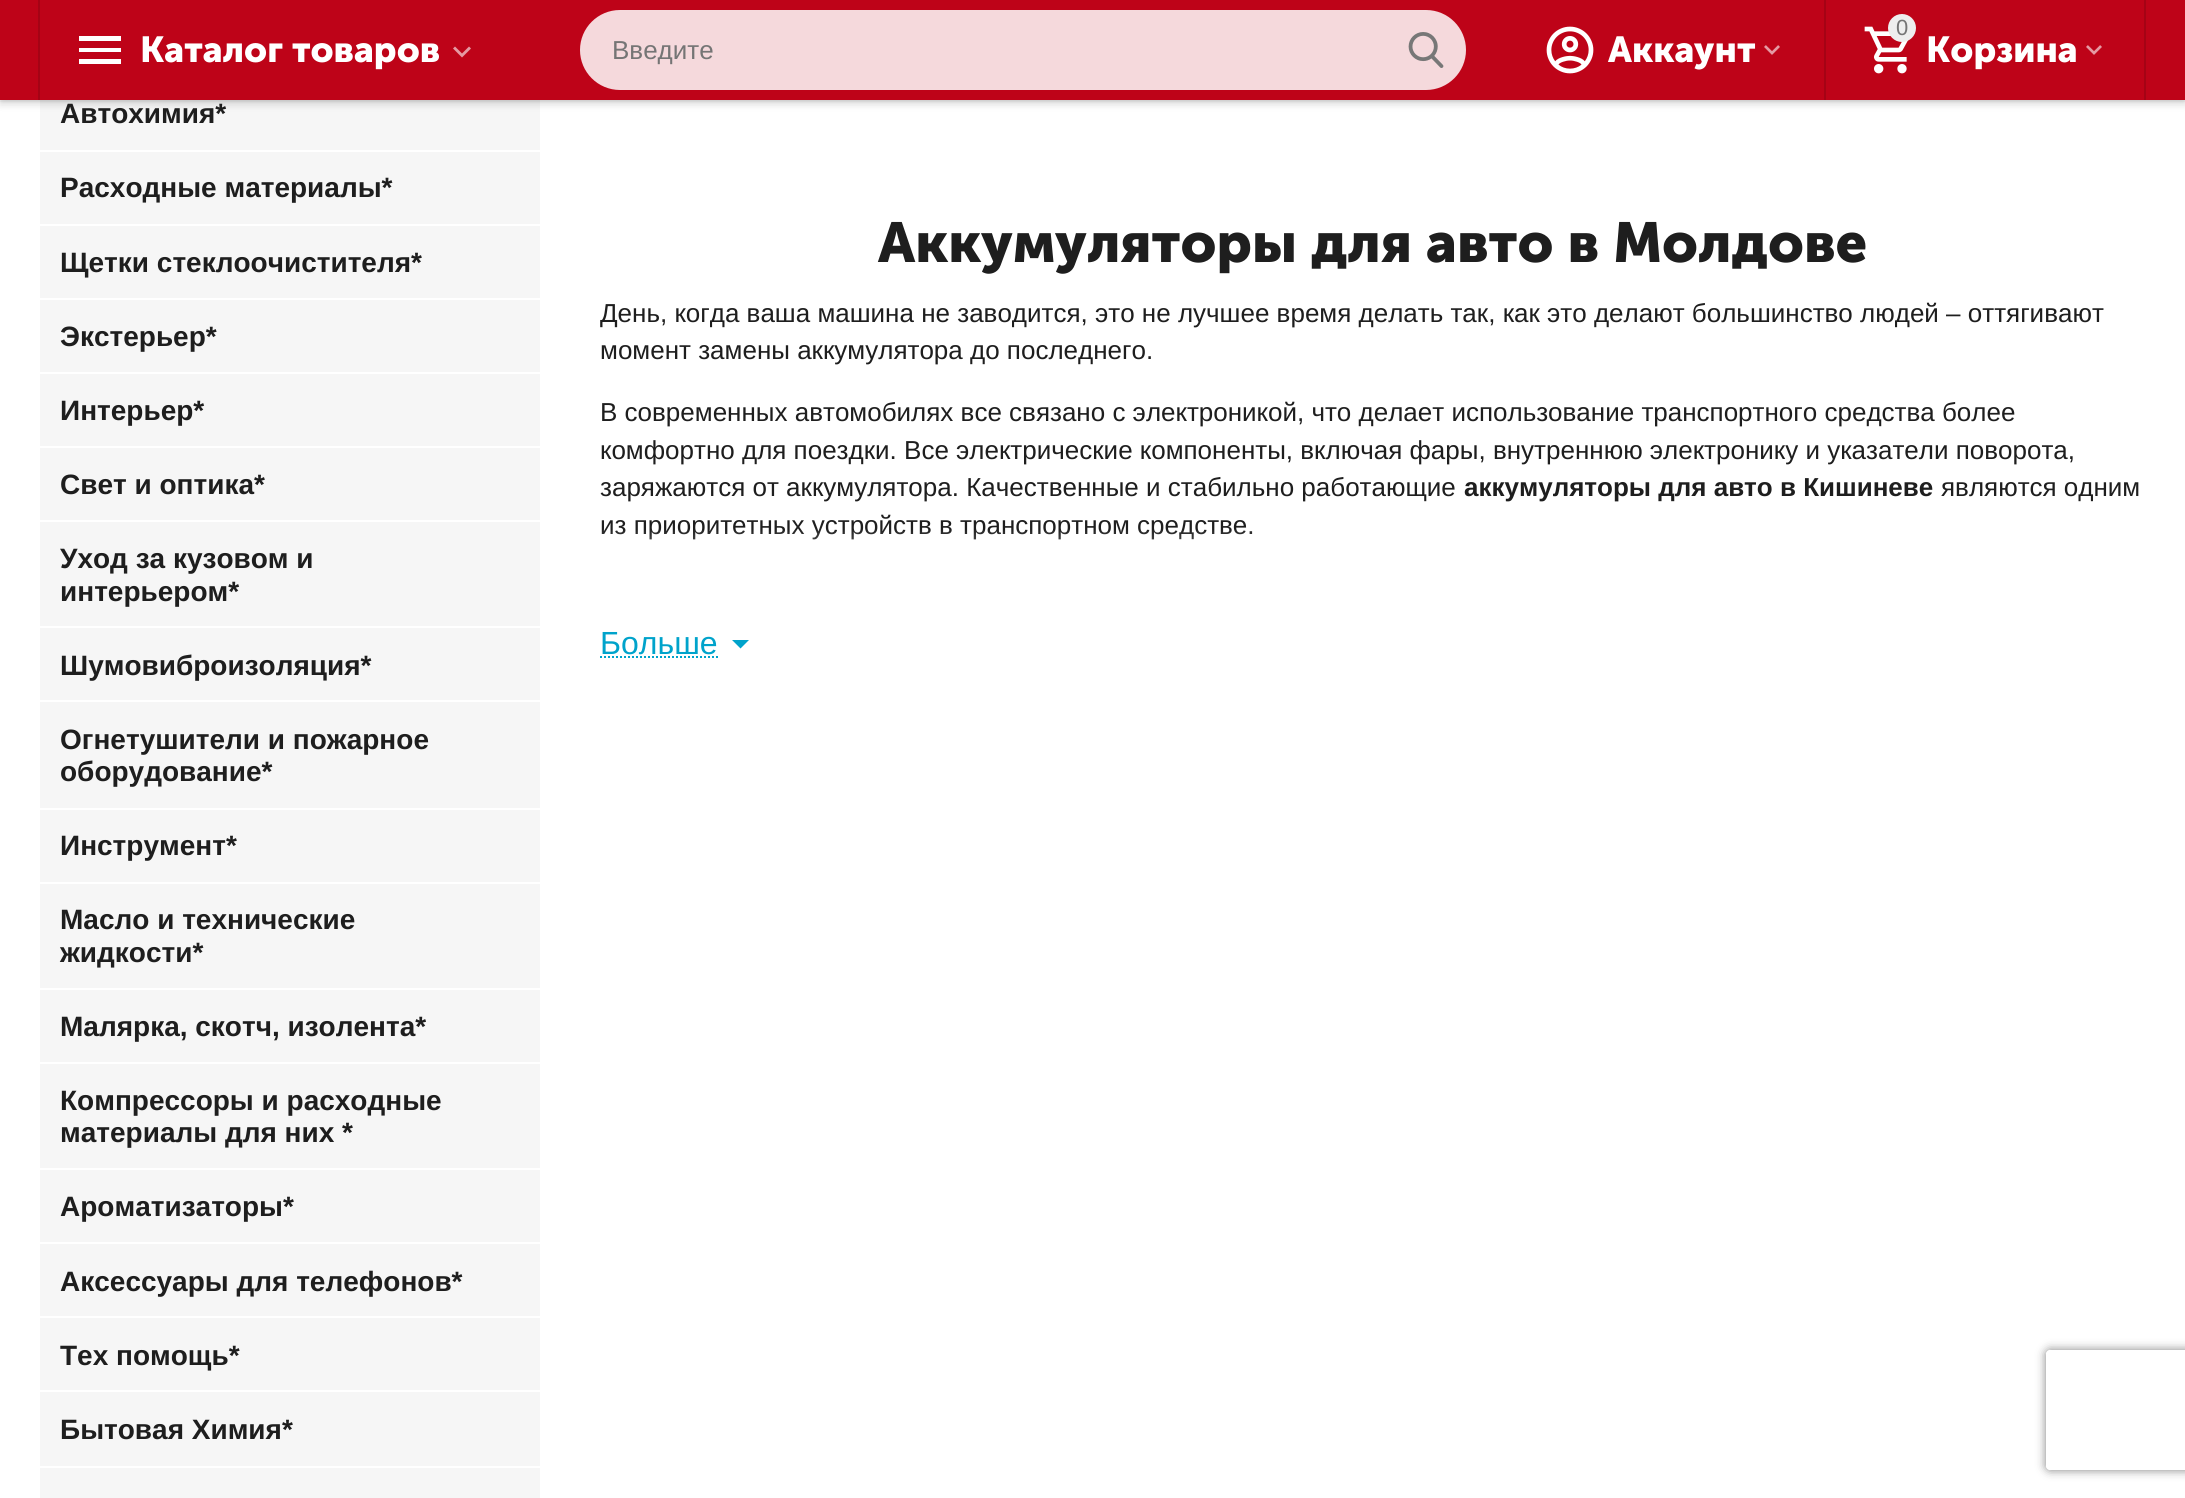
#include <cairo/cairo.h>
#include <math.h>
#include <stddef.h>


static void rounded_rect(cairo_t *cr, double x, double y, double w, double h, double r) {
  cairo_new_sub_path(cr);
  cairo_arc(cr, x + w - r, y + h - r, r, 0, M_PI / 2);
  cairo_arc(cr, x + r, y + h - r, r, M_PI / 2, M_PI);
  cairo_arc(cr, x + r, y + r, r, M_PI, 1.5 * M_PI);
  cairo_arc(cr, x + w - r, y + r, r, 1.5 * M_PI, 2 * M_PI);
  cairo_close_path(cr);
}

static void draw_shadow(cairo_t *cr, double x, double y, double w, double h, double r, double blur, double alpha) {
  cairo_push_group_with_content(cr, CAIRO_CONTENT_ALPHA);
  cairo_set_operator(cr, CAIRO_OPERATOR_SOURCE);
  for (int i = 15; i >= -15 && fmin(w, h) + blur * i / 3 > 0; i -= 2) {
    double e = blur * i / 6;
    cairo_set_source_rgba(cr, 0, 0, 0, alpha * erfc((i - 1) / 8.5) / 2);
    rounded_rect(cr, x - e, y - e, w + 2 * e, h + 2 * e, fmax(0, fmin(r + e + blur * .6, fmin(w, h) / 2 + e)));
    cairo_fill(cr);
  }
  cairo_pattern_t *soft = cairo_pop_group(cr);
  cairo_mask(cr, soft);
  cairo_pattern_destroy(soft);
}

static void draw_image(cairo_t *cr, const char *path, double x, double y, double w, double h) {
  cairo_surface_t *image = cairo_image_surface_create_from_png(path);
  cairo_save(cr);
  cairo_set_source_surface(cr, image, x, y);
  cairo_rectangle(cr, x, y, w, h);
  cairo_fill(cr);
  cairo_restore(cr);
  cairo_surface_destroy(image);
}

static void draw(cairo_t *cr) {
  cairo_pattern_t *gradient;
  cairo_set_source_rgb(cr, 1, 1, 1);
  cairo_paint(cr);
  cairo_set_source_rgb(cr, 246 / 255.0, 246 / 255.0, 246 / 255.0);
  cairo_rectangle(cr, 40, 100, 500, 1398);
  cairo_fill(cr);
  cairo_set_source_rgb(cr, 0, 0, 0);
  draw_shadow(cr, 0, 6, 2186, 100, 0, 3, 0.1);
  draw_shadow(cr, 0, 2, 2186, 100, 0, 1, 0.1);
  cairo_set_source_rgb(cr, 190 / 255.0, 3 / 255.0, 24 / 255.0);
  cairo_rectangle(cr, 0, 0, 2185, 100);
  cairo_fill(cr);
  cairo_set_source_rgb(cr, 165 / 255.0, 3 / 255.0, 21 / 255.0);
  cairo_rectangle(cr, 38, 0, 2, 100);
  cairo_fill(cr);
  cairo_set_source_rgb(cr, 1, 1, 1);
  cairo_new_path(cr);
  cairo_move_to(cr, 79, 64);
  cairo_line_to(cr, 121, 64);
  cairo_line_to(cr, 121, 59);
  cairo_line_to(cr, 79, 59);
  cairo_close_path(cr);
  cairo_move_to(cr, 79, 52);
  cairo_line_to(cr, 121, 52);
  cairo_line_to(cr, 121, 48);
  cairo_line_to(cr, 79, 48);
  cairo_close_path(cr);
  cairo_move_to(cr, 79, 36);
  cairo_line_to(cr, 79, 41);
  cairo_line_to(cr, 121, 41);
  cairo_line_to(cr, 121, 36);
  cairo_close_path(cr);
  cairo_fill(cr);
  cairo_set_source_rgb(cr, 229 / 255.0, 154 / 255.0, 163 / 255.0);
  cairo_new_path(cr);
  cairo_move_to(cr, 469, 46.5);
  cairo_line_to(cr, 462, 53.5);
  cairo_line_to(cr, 455, 46.5);
  cairo_line_to(cr, 453, 48.5);
  cairo_line_to(cr, 462, 57.5);
  cairo_line_to(cr, 471, 48.5);
  cairo_close_path(cr);
  cairo_fill(cr);
  cairo_set_source_rgb(cr, 245 / 255.0, 217 / 255.0, 220 / 255.0);
  rounded_rect(cr, 580, 10, 886, 80, 40);
  cairo_fill(cr);
  draw_image(cr, "images/1.png", 1408, 32, 36, 36);
  cairo_set_source_rgb(cr, 165 / 255.0, 3 / 255.0, 21 / 255.0);
  cairo_rectangle(cr, 1824, 0, 2, 100);
  cairo_fill(cr);
  draw_image(cr, "images/2.png", 1546, 26, 48, 48);
  draw_image(cr, "images/3.png", 1764, 45, 16, 10);
  cairo_rectangle(cr, 2144, 0, 2, 100);
  cairo_fill(cr);
  draw_image(cr, "images/4.png", 1864, 26, 45, 48);
  cairo_set_source_rgb(cr, 238 / 255.0, 238 / 255.0, 238 / 255.0);
  cairo_arc(cr, 1902, 28, 14, 0, 2 * M_PI);
  cairo_fill(cr);
  draw_image(cr, "images/3.png", 2086, 45, 16, 10);
  cairo_set_source_rgb(cr, 1, 1, 1);
  cairo_rectangle(cr, 40, 150, 500, 2);
  cairo_fill(cr);
  cairo_rectangle(cr, 40, 224, 500, 2);
  cairo_fill(cr);
  cairo_rectangle(cr, 40, 298, 500, 2);
  cairo_fill(cr);
  cairo_rectangle(cr, 40, 372, 500, 2);
  cairo_fill(cr);
  cairo_rectangle(cr, 40, 446, 500, 2);
  cairo_fill(cr);
  cairo_rectangle(cr, 40, 520, 500, 2);
  cairo_fill(cr);
  cairo_rectangle(cr, 40, 626, 500, 2);
  cairo_fill(cr);
  cairo_rectangle(cr, 40, 700, 500, 2);
  cairo_fill(cr);
  cairo_rectangle(cr, 40, 808, 500, 2);
  cairo_fill(cr);
  cairo_rectangle(cr, 40, 882, 500, 2);
  cairo_fill(cr);
  cairo_rectangle(cr, 40, 988, 500, 2);
  cairo_fill(cr);
  cairo_rectangle(cr, 40, 1062, 500, 2);
  cairo_fill(cr);
  cairo_rectangle(cr, 40, 1168, 500, 2);
  cairo_fill(cr);
  cairo_rectangle(cr, 40, 1242, 500, 2);
  cairo_fill(cr);
  cairo_rectangle(cr, 40, 1316, 500, 2);
  cairo_fill(cr);
  cairo_rectangle(cr, 40, 1390, 500, 2);
  cairo_fill(cr);
  cairo_rectangle(cr, 40, 1466, 500, 2);
  cairo_fill(cr);
  cairo_new_path(cr);
  cairo_move_to(cr, 600, 657);
  cairo_line_to(cr, 718, 657);
  cairo_set_source_rgb(cr, 0, 163 / 255.0, 203 / 255.0);
  cairo_set_dash(cr, (double[]){2, 2}, 2, 0);
  cairo_stroke(cr);
  cairo_new_path(cr);
  cairo_move_to(cr, 740.5, 648.5);
  cairo_line_to(cr, 732, 640);
  cairo_line_to(cr, 749, 640);
  cairo_close_path(cr);
  cairo_fill(cr);
  cairo_save(cr);
  cairo_set_fill_rule(cr, CAIRO_FILL_RULE_EVEN_ODD);
  cairo_new_path(cr);
  cairo_move_to(cr, 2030, 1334);
  cairo_line_to(cr, 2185, 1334);
  cairo_line_to(cr, 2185, 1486);
  cairo_line_to(cr, 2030, 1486);
  cairo_close_path(cr);
  cairo_move_to(cr, 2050, 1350);
  cairo_line_to(cr, 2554, 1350);
  cairo_curve_to(cr, 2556, 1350, 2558, 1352, 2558, 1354);
  cairo_line_to(cr, 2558, 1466);
  cairo_curve_to(cr, 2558, 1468, 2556, 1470, 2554, 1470);
  cairo_line_to(cr, 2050, 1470);
  cairo_curve_to(cr, 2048, 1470, 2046, 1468, 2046, 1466);
  cairo_line_to(cr, 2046, 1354);
  cairo_curve_to(cr, 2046, 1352, 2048, 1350, 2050, 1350);
  cairo_close_path(cr);
  cairo_clip(cr);
  cairo_set_source_rgb(cr, 128 / 255.0, 128 / 255.0, 128 / 255.0);
  draw_shadow(cr, 2046, 1350, 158, 120, 4, 5, 1);
  cairo_restore(cr);
  cairo_select_font_face(cr, "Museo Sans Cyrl", CAIRO_FONT_SLANT_NORMAL, CAIRO_FONT_WEIGHT_BOLD);
  cairo_set_font_size(cr, 36);
  cairo_set_source_rgb(cr, 1, 1, 1);
  cairo_move_to(cr, 140, 62);
  cairo_show_text(cr, "Каталог товаров");
  cairo_select_font_face(cr, "Liberation Sans", CAIRO_FONT_SLANT_NORMAL, CAIRO_FONT_WEIGHT_NORMAL);
  cairo_set_font_size(cr, 26);
  cairo_set_source_rgb(cr, 117 / 255.0, 117 / 255.0, 117 / 255.0);
  cairo_move_to(cr, 612, 59);
  cairo_show_text(cr, "Введите");
  cairo_select_font_face(cr, "Museo Sans Cyrl", CAIRO_FONT_SLANT_NORMAL, CAIRO_FONT_WEIGHT_BOLD);
  cairo_set_font_size(cr, 36);
  cairo_set_source_rgb(cr, 1, 1, 1);
  cairo_move_to(cr, 1608, 62);
  cairo_show_text(cr, "Аккаунт");
  cairo_select_font_face(cr, "Liberation Sans", CAIRO_FONT_SLANT_NORMAL, CAIRO_FONT_WEIGHT_NORMAL);
  cairo_set_font_size(cr, 22);
  cairo_set_source_rgb(cr, 117 / 255.0, 117 / 255.0, 117 / 255.0);
  cairo_move_to(cr, 1896, 35);
  cairo_show_text(cr, "0");
  cairo_select_font_face(cr, "Museo Sans Cyrl", CAIRO_FONT_SLANT_NORMAL, CAIRO_FONT_WEIGHT_BOLD);
  cairo_set_font_size(cr, 36);
  cairo_set_source_rgb(cr, 1, 1, 1);
  cairo_move_to(cr, 1926, 62);
  cairo_show_text(cr, "Корзина");
  cairo_select_font_face(cr, "Liberation Sans", CAIRO_FONT_SLANT_NORMAL, CAIRO_FONT_WEIGHT_BOLD);
  cairo_set_font_size(cr, 28);
  cairo_set_source_rgb(cr, 30 / 255.0, 30 / 255.0, 30 / 255.0);
  cairo_move_to(cr, 60, 123);
  cairo_show_text(cr, "Автохимия*");
  cairo_move_to(cr, 60, 197);
  cairo_show_text(cr, "Расходные материалы*");
  cairo_move_to(cr, 60, 272);
  cairo_show_text(cr, "Щетки стеклоочистителя*");
  cairo_move_to(cr, 60, 346);
  cairo_show_text(cr, "Экстерьер*");
  cairo_move_to(cr, 60, 420);
  cairo_show_text(cr, "Интерьер*");
  cairo_move_to(cr, 60, 494);
  cairo_show_text(cr, "Свет и оптика*");
  cairo_move_to(cr, 60, 568);
  cairo_show_text(cr, "Уход за кузовом и");
  cairo_move_to(cr, 60, 601);
  cairo_show_text(cr, "интерьером*");
  cairo_move_to(cr, 60, 675);
  cairo_show_text(cr, "Шумовиброизоляция*");
  cairo_move_to(cr, 60, 749);
  cairo_show_text(cr, "Огнетушители и пожарное");
  cairo_move_to(cr, 60, 781);
  cairo_show_text(cr, "оборудование*");
  cairo_move_to(cr, 60, 855);
  cairo_show_text(cr, "Инструмент*");
  cairo_move_to(cr, 60, 929);
  cairo_show_text(cr, "Масло и технические");
  cairo_move_to(cr, 60, 962);
  cairo_show_text(cr, "жидкости*");
  cairo_move_to(cr, 60, 1036);
  cairo_show_text(cr, "Малярка, скотч, изолента*");
  cairo_move_to(cr, 60, 1110);
  cairo_show_text(cr, "Компрессоры и расходные");
  cairo_move_to(cr, 60, 1142);
  cairo_show_text(cr, "материалы для них *");
  cairo_move_to(cr, 60, 1216);
  cairo_show_text(cr, "Ароматизаторы*");
  cairo_move_to(cr, 60, 1291);
  cairo_show_text(cr, "Аксессуары для телефонов*");
  cairo_move_to(cr, 60, 1365);
  cairo_show_text(cr, "Тех помощь*");
  cairo_move_to(cr, 60, 1439);
  cairo_show_text(cr, "Бытовая Химия*");
  cairo_select_font_face(cr, "Museo Sans Cyrl", CAIRO_FONT_SLANT_NORMAL, CAIRO_FONT_WEIGHT_BOLD);
  cairo_set_font_size(cr, 56);
  cairo_move_to(cr, 878, 262);
  cairo_show_text(cr, "Аккумуляторы для авто в Молдове");
  cairo_select_font_face(cr, "Liberation Sans", CAIRO_FONT_SLANT_NORMAL, CAIRO_FONT_WEIGHT_NORMAL);
  cairo_set_font_size(cr, 26);
  cairo_move_to(cr, 600, 322);
  cairo_show_text(cr, "День, когда ваша машина не заводится, это не лучшее время делать так, как это делают большинство людей – оттягивают");
  cairo_move_to(cr, 600, 359);
  cairo_show_text(cr, "момент замены аккумулятора до последнего.");
  cairo_move_to(cr, 600, 421);
  cairo_show_text(cr, "В современных автомобилях все связано с электроникой, что делает использование транспортного средства более");
  cairo_move_to(cr, 600, 459);
  cairo_show_text(cr, "комфортно для поездки. Все электрические компоненты, включая фары, внутреннюю электронику и указатели поворота,");
  cairo_move_to(cr, 600, 496);
  cairo_show_text(cr, "заряжаются от аккумулятора. Качественные и стабильно работающие");
  cairo_select_font_face(cr, "Liberation Sans", CAIRO_FONT_SLANT_NORMAL, CAIRO_FONT_WEIGHT_BOLD);
  cairo_move_to(cr, 1464, 496);
  cairo_show_text(cr, "аккумуляторы для авто в Кишиневе");
  cairo_select_font_face(cr, "Liberation Sans", CAIRO_FONT_SLANT_NORMAL, CAIRO_FONT_WEIGHT_NORMAL);
  cairo_move_to(cr, 1941, 496);
  cairo_show_text(cr, "являются одним");
  cairo_move_to(cr, 600, 534);
  cairo_show_text(cr, "из приоритетных устройств в транспортном средстве.");
  gradient = cairo_pattern_create_linear(1373, 606, 1373, 528);
  cairo_pattern_add_color_stop_rgba(gradient, 0, 1, 1, 1, 1);
  cairo_pattern_add_color_stop_rgba(gradient, 1, 1, 1, 1, 0);
  cairo_set_source(cr, gradient);
  cairo_pattern_destroy(gradient);
  cairo_rectangle(cr, 601, 530, 652, 10);
  cairo_fill(cr);
  cairo_set_font_size(cr, 32);
  cairo_set_source_rgb(cr, 0, 163 / 255.0, 203 / 255.0);
  cairo_move_to(cr, 600, 654);
  cairo_show_text(cr, "Больше");
}

int main(void) {
  cairo_surface_t *surface = cairo_image_surface_create(CAIRO_FORMAT_RGB24, 2185, 1498);
  cairo_t *cr = cairo_create(surface);
  cairo_font_options_t *options = cairo_font_options_create();
  cairo_font_options_set_hint_metrics(options, CAIRO_HINT_METRICS_OFF);
  cairo_font_options_set_hint_style(options, CAIRO_HINT_STYLE_NONE);
  cairo_set_font_options(cr, options);
  cairo_set_miter_limit(cr, 4);
  draw(cr);
  cairo_surface_write_to_png(surface, "out.png");
  cairo_font_options_destroy(options);
  cairo_destroy(cr);
  cairo_surface_destroy(surface);
  return 0;
}
